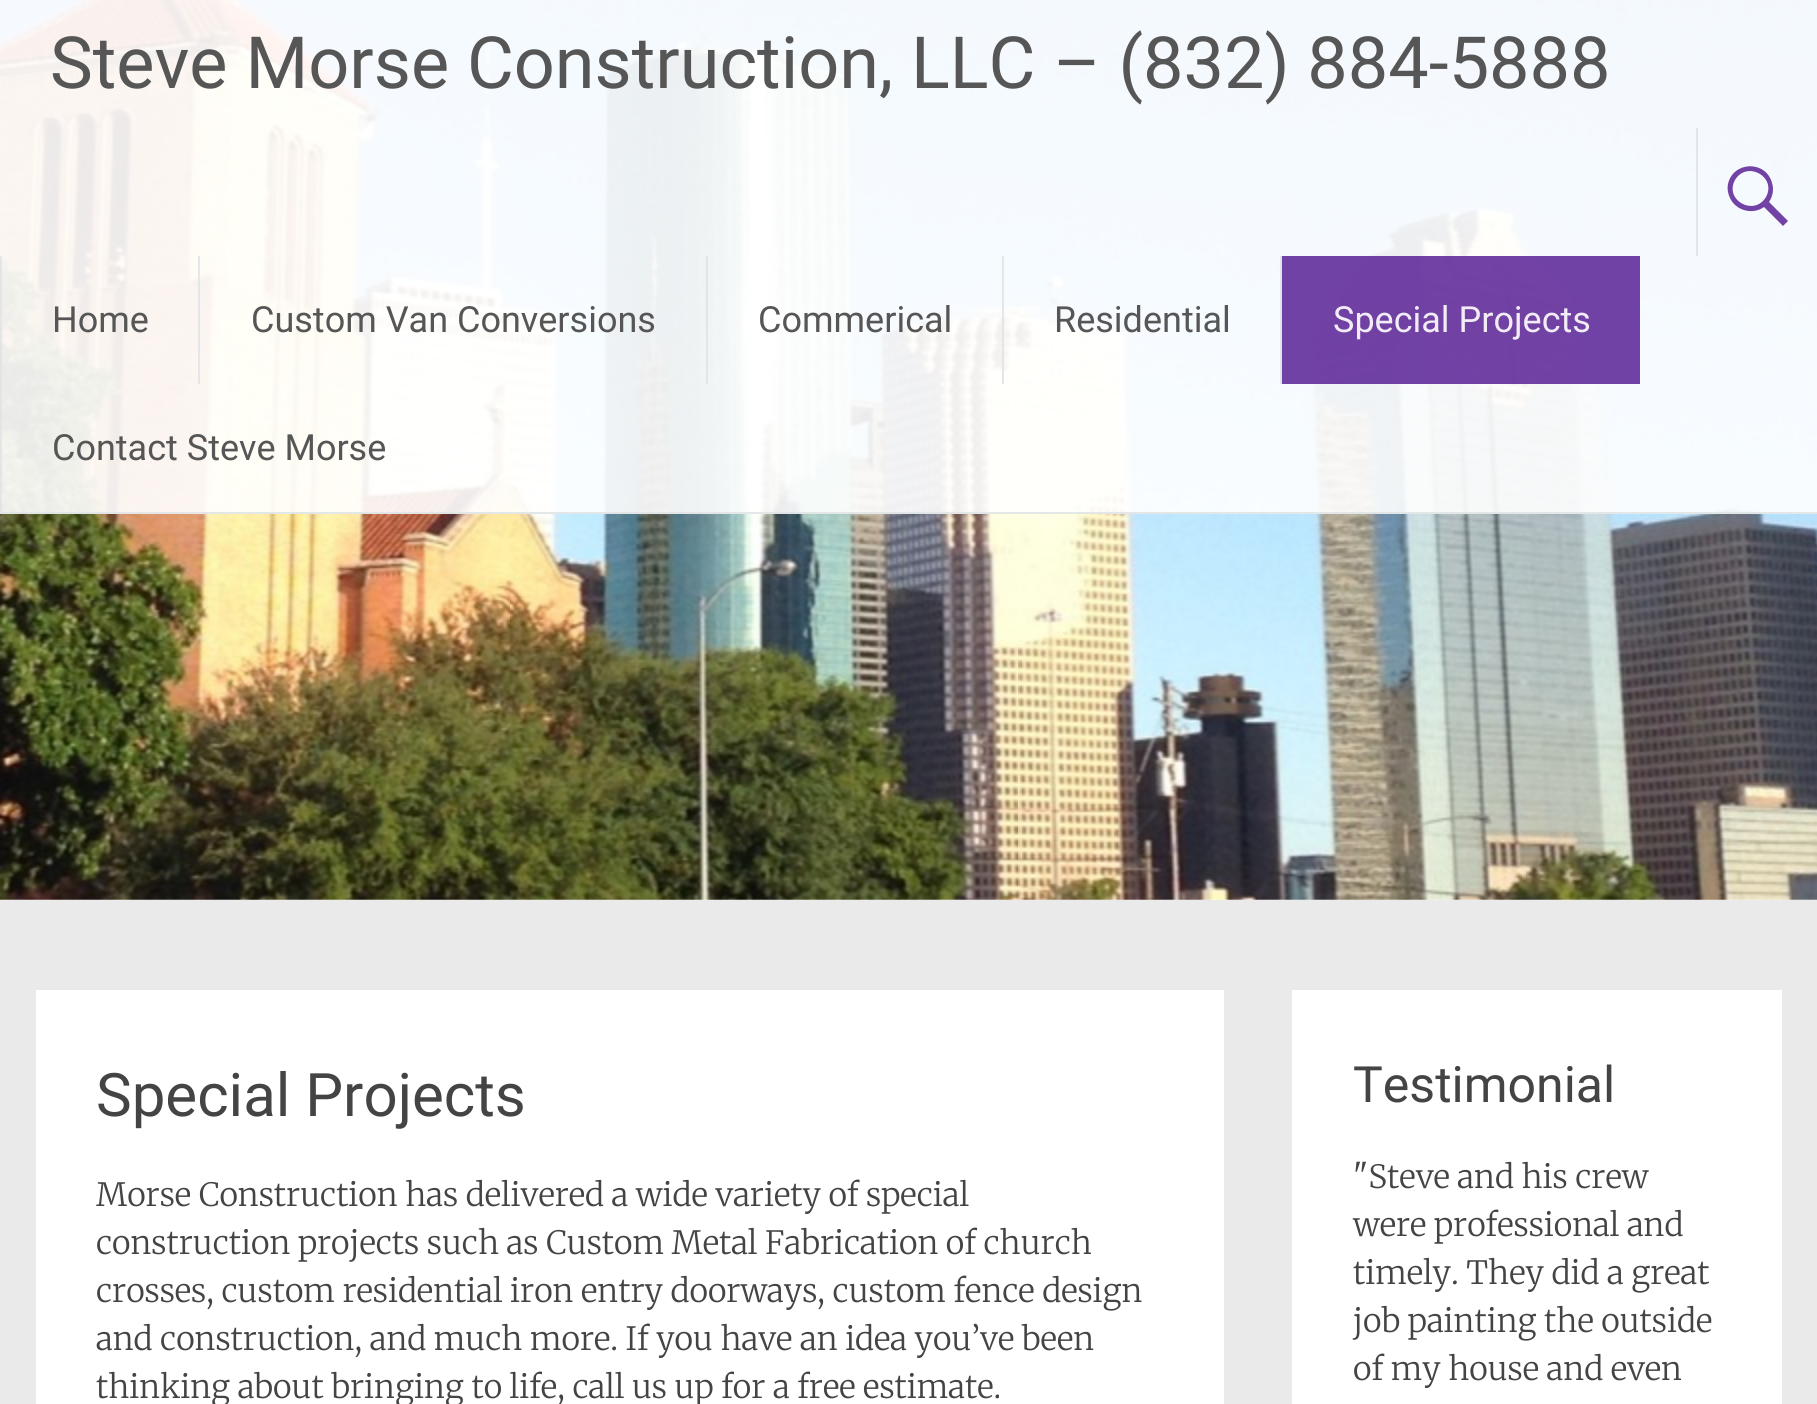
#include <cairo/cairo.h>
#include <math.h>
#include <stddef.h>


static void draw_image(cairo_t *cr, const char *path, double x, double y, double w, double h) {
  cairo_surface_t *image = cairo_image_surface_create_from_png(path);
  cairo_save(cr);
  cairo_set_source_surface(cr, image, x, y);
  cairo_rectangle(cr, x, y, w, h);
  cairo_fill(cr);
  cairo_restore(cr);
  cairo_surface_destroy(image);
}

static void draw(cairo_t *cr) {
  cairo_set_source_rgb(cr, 1, 1, 1);
  cairo_paint(cr);
  draw_image(cr, "images/1.png", 0, 0, 1817, 900);
  cairo_set_source_rgba(cr, 1, 1, 1, 0.9);
  cairo_rectangle(cr, 0, 0, 1817, 514);
  cairo_fill(cr);
  cairo_set_source_rgba(cr, 225 / 255.0, 228 / 255.0, 230 / 255.0, 0.9);
  cairo_rectangle(cr, 0, 512, 1817, 2);
  cairo_fill(cr);
  cairo_set_source_rgb(cr, 227 / 255.0, 230 / 255.0, 232 / 255.0);
  cairo_rectangle(cr, 1696, 128, 2, 128);
  cairo_fill(cr);
  cairo_set_source_rgb(cr, 114 / 255.0, 66 / 255.0, 165 / 255.0);
  cairo_new_path(cr);
  cairo_move_to(cr, 1788, 221);
  cairo_line_to(cr, 1783, 226);
  cairo_line_to(cr, 1764, 207);
  cairo_curve_to(cr, 1753, 215, 1736, 211, 1730, 198);
  cairo_curve_to(cr, 1728, 194, 1727, 189, 1728, 184);
  cairo_curve_to(cr, 1733, 161, 1766, 160, 1772, 183);
  cairo_curve_to(cr, 1774, 189, 1773, 196, 1769, 202);
  cairo_close_path(cr);
  cairo_move_to(cr, 1735, 180);
  cairo_curve_to(cr, 1724, 200, 1754, 217, 1766, 197);
  cairo_curve_to(cr, 1777, 177, 1747, 160, 1735, 180);
  cairo_close_path(cr);
  cairo_fill(cr);
  cairo_set_source_rgba(cr, 225 / 255.0, 228 / 255.0, 230 / 255.0, 0.9);
  cairo_rectangle(cr, 0, 256, 2, 128);
  cairo_fill(cr);
  cairo_rectangle(cr, 198, 256, 2, 128);
  cairo_fill(cr);
  cairo_set_source_rgb(cr, 227 / 255.0, 230 / 255.0, 231 / 255.0);
  cairo_rectangle(cr, 706, 256, 2, 128);
  cairo_fill(cr);
  cairo_set_source_rgba(cr, 225 / 255.0, 228 / 255.0, 230 / 255.0, 0.9);
  cairo_rectangle(cr, 1002, 256, 2, 128);
  cairo_fill(cr);
  cairo_set_source_rgb(cr, 227 / 255.0, 230 / 255.0, 232 / 255.0);
  cairo_rectangle(cr, 1280, 256, 2, 128);
  cairo_fill(cr);
  cairo_set_source_rgba(cr, 99 / 255.0, 46 / 255.0, 155 / 255.0, 0.9);
  cairo_rectangle(cr, 1282, 256, 358, 128);
  cairo_fill(cr);
  cairo_set_source_rgba(cr, 225 / 255.0, 228 / 255.0, 230 / 255.0, 0.9);
  cairo_rectangle(cr, 0, 384, 2, 128);
  cairo_fill(cr);
  cairo_set_source_rgb(cr, 234 / 255.0, 234 / 255.0, 234 / 255.0);
  cairo_rectangle(cr, 0, 900, 1817, 504);
  cairo_fill(cr);
  cairo_set_source_rgb(cr, 1, 1, 1);
  cairo_rectangle(cr, 36, 990, 1188, 414);
  cairo_fill(cr);
  cairo_rectangle(cr, 1292, 990, 490, 414);
  cairo_fill(cr);
  cairo_select_font_face(cr, "Roboto", CAIRO_FONT_SLANT_NORMAL, CAIRO_FONT_WEIGHT_NORMAL);
  cairo_set_font_size(cr, 72);
  cairo_set_source_rgb(cr, 86 / 255.0, 86 / 255.0, 86 / 255.0);
  cairo_move_to(cr, 50, 88);
  cairo_show_text(cr, "Steve Morse Construction, LLC – (832) 884-5888");
  cairo_set_font_size(cr, 36);
  cairo_move_to(cr, 52, 332);
  cairo_show_text(cr, "Home");
  cairo_move_to(cr, 251, 332);
  cairo_show_text(cr, "Custom Van Conversions");
  cairo_move_to(cr, 758, 332);
  cairo_show_text(cr, "Commerical");
  cairo_move_to(cr, 1054, 332);
  cairo_show_text(cr, "Residential");
  cairo_set_source_rgb(cr, 241 / 255.0, 236 / 255.0, 246 / 255.0);
  cairo_move_to(cr, 1333, 332);
  cairo_show_text(cr, "Special Projects");
  cairo_set_source_rgb(cr, 86 / 255.0, 86 / 255.0, 86 / 255.0);
  cairo_move_to(cr, 52, 460);
  cairo_show_text(cr, "Contact Steve Morse");
  cairo_set_font_size(cr, 60);
  cairo_set_source_rgb(cr, 68 / 255.0, 68 / 255.0, 68 / 255.0);
  cairo_move_to(cr, 96, 1116);
  cairo_show_text(cr, "Special Projects");
  cairo_select_font_face(cr, "Merriweather Light", CAIRO_FONT_SLANT_NORMAL, CAIRO_FONT_WEIGHT_NORMAL);
  cairo_set_font_size(cr, 32);
  cairo_move_to(cr, 96, 1206);
  cairo_show_text(cr, "Morse Construction has delivered a wide variety of special");
  cairo_move_to(cr, 96, 1254);
  cairo_show_text(cr, "construction projects such as Custom Metal Fabrication of church");
  cairo_move_to(cr, 96, 1302);
  cairo_show_text(cr, "crosses, custom residential iron entry doorways, custom fence design");
  cairo_move_to(cr, 96, 1350);
  cairo_show_text(cr, "and construction, and much more. If you have an idea you’ve been");
  cairo_move_to(cr, 96, 1398);
  cairo_show_text(cr, "thinking about bringing to life, call us up for a free estimate.");
  cairo_select_font_face(cr, "Roboto", CAIRO_FONT_SLANT_NORMAL, CAIRO_FONT_WEIGHT_NORMAL);
  cairo_set_font_size(cr, 50);
  cairo_move_to(cr, 1353, 1102);
  cairo_show_text(cr, "Testimonial");
  cairo_select_font_face(cr, "Merriweather Light", CAIRO_FONT_SLANT_NORMAL, CAIRO_FONT_WEIGHT_NORMAL);
  cairo_set_font_size(cr, 32);
  cairo_move_to(cr, 1353, 1188);
  cairo_show_text(cr, "\"Steve and his crew");
  cairo_move_to(cr, 1353, 1236);
  cairo_show_text(cr, "were professional and");
  cairo_move_to(cr, 1353, 1284);
  cairo_show_text(cr, "timely. They did a great");
  cairo_move_to(cr, 1353, 1332);
  cairo_show_text(cr, "job painting the outside");
  cairo_move_to(cr, 1353, 1380);
  cairo_show_text(cr, "of my house and even");
}

int main(void) {
  cairo_surface_t *surface = cairo_image_surface_create(CAIRO_FORMAT_RGB24, 1817, 1404);
  cairo_t *cr = cairo_create(surface);
  cairo_font_options_t *options = cairo_font_options_create();
  cairo_font_options_set_hint_metrics(options, CAIRO_HINT_METRICS_OFF);
  cairo_font_options_set_hint_style(options, CAIRO_HINT_STYLE_NONE);
  cairo_set_font_options(cr, options);
  cairo_set_miter_limit(cr, 4);
  draw(cr);
  cairo_surface_write_to_png(surface, "out.png");
  cairo_font_options_destroy(options);
  cairo_destroy(cr);
  cairo_surface_destroy(surface);
  return 0;
}
